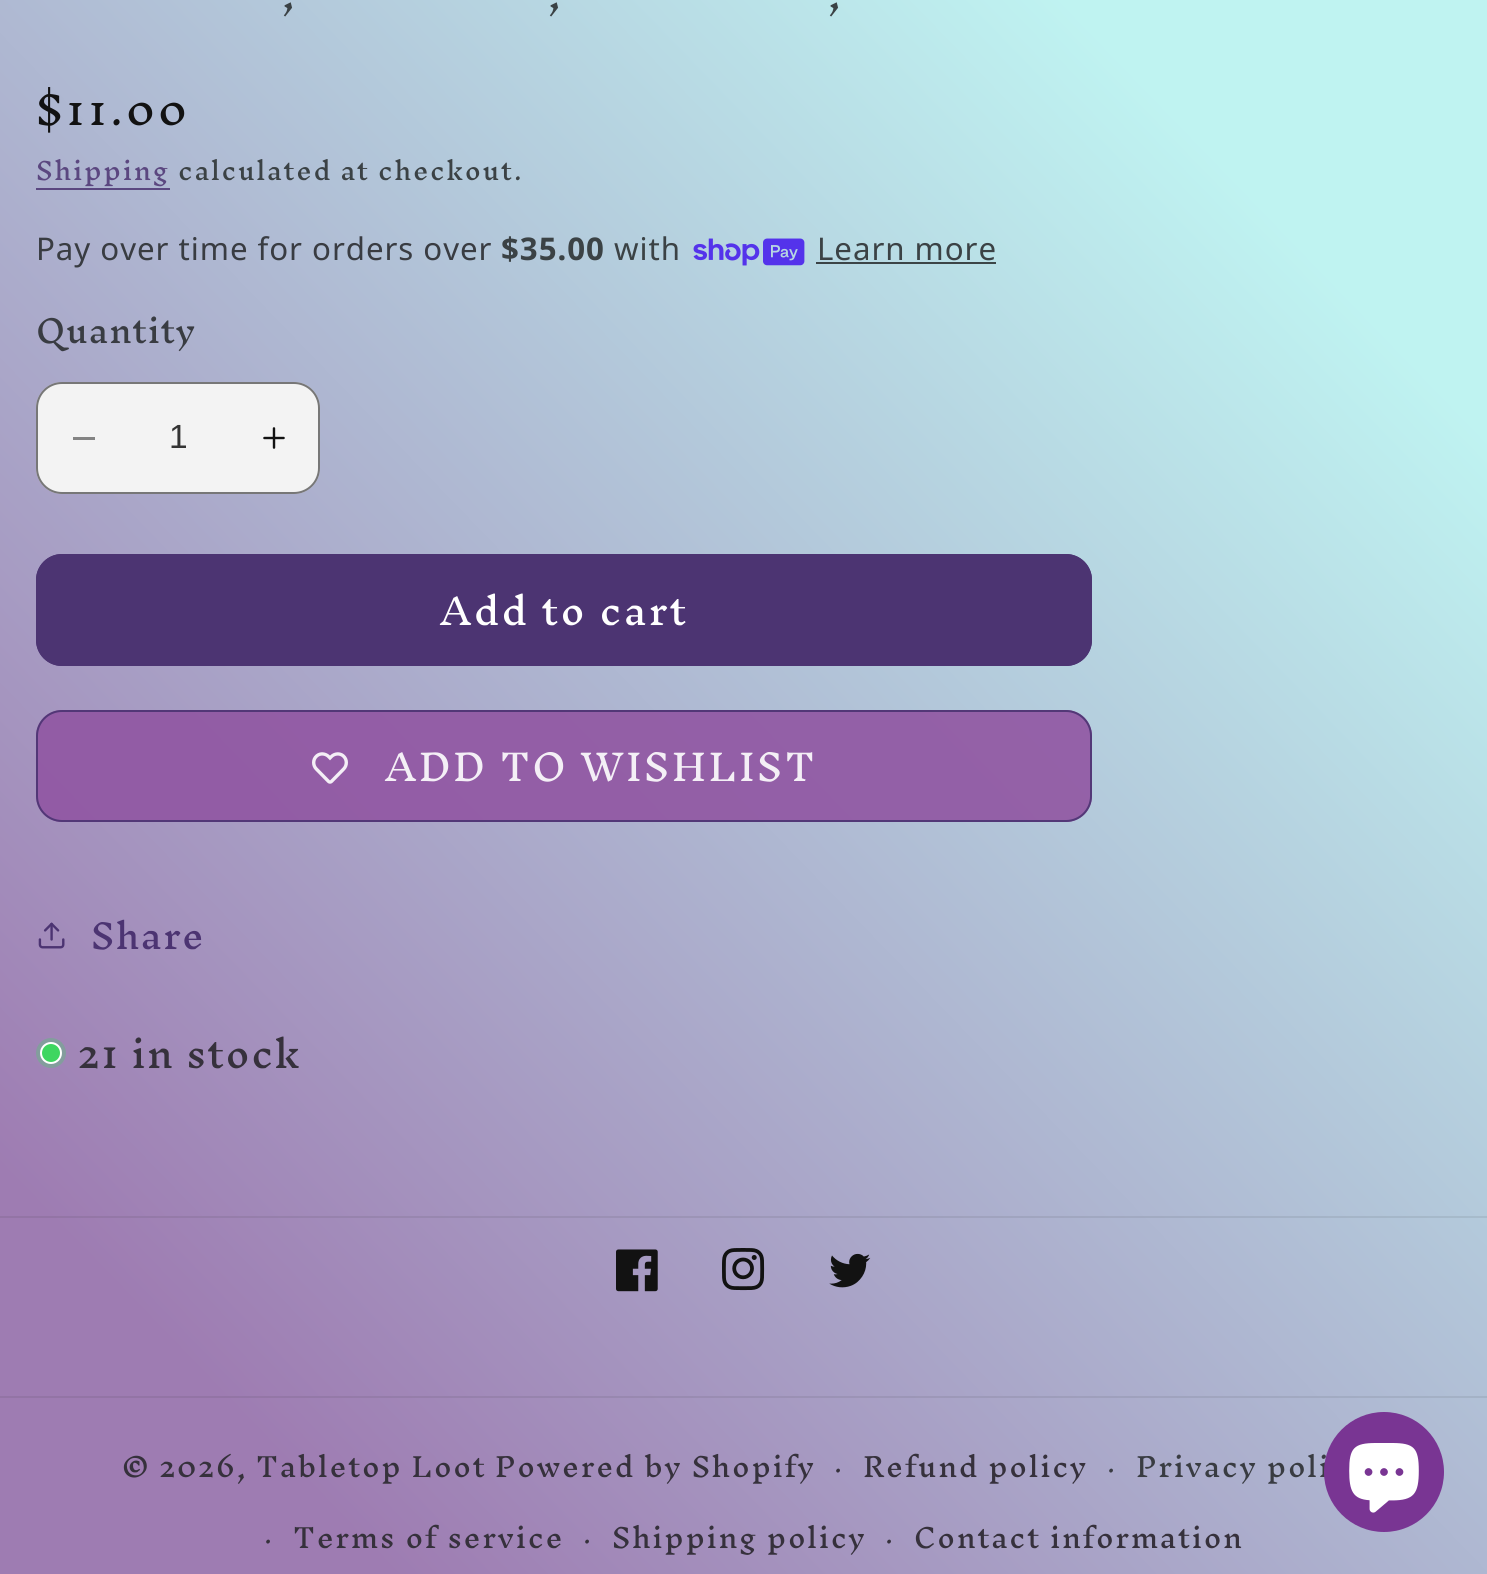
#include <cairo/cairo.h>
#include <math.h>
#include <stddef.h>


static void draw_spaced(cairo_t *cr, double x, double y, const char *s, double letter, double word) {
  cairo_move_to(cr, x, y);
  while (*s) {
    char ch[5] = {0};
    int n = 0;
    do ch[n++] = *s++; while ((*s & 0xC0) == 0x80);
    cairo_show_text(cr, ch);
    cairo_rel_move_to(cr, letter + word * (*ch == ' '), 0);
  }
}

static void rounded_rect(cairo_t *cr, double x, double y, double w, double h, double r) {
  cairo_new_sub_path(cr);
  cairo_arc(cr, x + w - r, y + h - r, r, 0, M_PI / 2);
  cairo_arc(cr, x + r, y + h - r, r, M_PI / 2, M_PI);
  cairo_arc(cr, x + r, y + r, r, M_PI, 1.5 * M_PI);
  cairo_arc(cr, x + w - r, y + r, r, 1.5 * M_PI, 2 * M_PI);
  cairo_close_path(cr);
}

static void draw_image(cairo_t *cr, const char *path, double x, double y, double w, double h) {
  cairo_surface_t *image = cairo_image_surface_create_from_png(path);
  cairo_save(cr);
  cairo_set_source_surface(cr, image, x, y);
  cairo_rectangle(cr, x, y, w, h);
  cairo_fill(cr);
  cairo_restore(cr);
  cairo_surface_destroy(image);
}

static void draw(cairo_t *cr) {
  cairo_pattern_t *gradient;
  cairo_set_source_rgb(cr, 1, 1, 1);
  cairo_paint(cr);
  gradient = cairo_pattern_create_linear(-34, 1539, 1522, 35);
  cairo_pattern_add_color_stop_rgba(gradient, 0.13, 158 / 255.0, 124 / 255.0, 178 / 255.0, 1);
  cairo_pattern_add_color_stop_rgba(gradient, 0.86, 191 / 255.0, 243 / 255.0, 241 / 255.0, 1);
  cairo_set_source(cr, gradient);
  cairo_pattern_destroy(gradient);
  cairo_rectangle(cr, 0, 0, 1487, 1574);
  cairo_fill(cr);
  gradient = cairo_pattern_create_linear(-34, 1539, 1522, 35);
  cairo_pattern_add_color_stop_rgba(gradient, 0.13, 147 / 255.0, 116 / 255.0, 165 / 255.0, 1);
  cairo_pattern_add_color_stop_rgba(gradient, 0.86, 177 / 255.0, 225 / 255.0, 223 / 255.0, 1);
  cairo_set_source(cr, gradient);
  cairo_pattern_destroy(gradient);
  cairo_rectangle(cr, 0, 1396, 1487, 2);
  cairo_fill(cr);
  gradient = cairo_pattern_create_linear(-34, 1539, 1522, 35);
  cairo_pattern_add_color_stop_rgba(gradient, 0.13, 53 / 255.0, 45 / 255.0, 58 / 255.0, 1);
  cairo_pattern_add_color_stop_rgba(gradient, 0.86, 61 / 255.0, 74 / 255.0, 74 / 255.0, 1);
  cairo_set_source(cr, gradient);
  cairo_pattern_destroy(gradient);
  cairo_rectangle(cr, 816, 262, 180, 2);
  cairo_fill(cr);
  gradient = cairo_pattern_create_linear(-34, 1539, 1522, 35);
  cairo_pattern_add_color_stop_rgba(gradient, 0.13, 88 / 255.0, 63 / 255.0, 124 / 255.0, 1);
  cairo_pattern_add_color_stop_rgba(gradient, 0.86, 93 / 255.0, 81 / 255.0, 133 / 255.0, 1);
  cairo_set_source(cr, gradient);
  cairo_pattern_destroy(gradient);
  cairo_rectangle(cr, 36, 188, 134, 2);
  cairo_fill(cr);
  gradient = cairo_pattern_create_linear(-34, 1539, 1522, 35);
  cairo_pattern_add_color_stop_rgba(gradient, 0.13, 147 / 255.0, 116 / 255.0, 165 / 255.0, 1);
  cairo_pattern_add_color_stop_rgba(gradient, 0.86, 177 / 255.0, 225 / 255.0, 223 / 255.0, 1);
  cairo_set_source(cr, gradient);
  cairo_pattern_destroy(gradient);
  cairo_rectangle(cr, 0, 1216, 1487, 2);
  cairo_fill(cr);
  draw_image(cr, "images/1.png", 693, 238, 112, 28);
  cairo_set_source_rgb(cr, 243 / 255.0, 243 / 255.0, 243 / 255.0);
  rounded_rect(cr, 36, 382, 284, 112, 26);
  cairo_fill(cr);
  cairo_set_source_rgb(cr, 131 / 255.0, 131 / 255.0, 131 / 255.0);
  cairo_rectangle(cr, 73, 437, 22, 3);
  cairo_fill(cr);
  draw_image(cr, "images/2.png", 263, 427, 22, 22);
  rounded_rect(cr, 37, 383, 282, 110, 25);
  cairo_set_source_rgba(cr, 18 / 255.0, 18 / 255.0, 18 / 255.0, 0.55);
  cairo_stroke(cr);
  cairo_set_source_rgb(cr, 76 / 255.0, 52 / 255.0, 114 / 255.0);
  rounded_rect(cr, 36, 554, 1056, 112, 26);
  cairo_fill(cr);
  rounded_rect(cr, 37, 555, 1054, 110, 25);
  cairo_stroke(cr);
  cairo_set_source_rgba(cr, 144 / 255.0, 86 / 255.0, 162 / 255.0, 0.9);
  rounded_rect(cr, 36, 710, 1056, 112, 26);
  cairo_fill(cr);
  draw_image(cr, "images/3.png", 312, 752, 36, 32);
  rounded_rect(cr, 37, 711, 1054, 110, 25);
  cairo_set_source_rgba(cr, 76 / 255.0, 52 / 255.0, 114 / 255.0, 0.9);
  cairo_stroke(cr);
  draw_image(cr, "images/4.png", 38, 922, 27, 27);
  cairo_set_source_rgb(cr, 131 / 255.0, 157 / 255.0, 157 / 255.0);
  cairo_arc(cr, 51, 1053, 15, 0, 2 * M_PI);
  cairo_fill(cr);
  cairo_set_source_rgb(cr, 62 / 255.0, 214 / 255.0, 96 / 255.0);
  cairo_arc(cr, 51, 1053, 10, 0, 2 * M_PI);
  cairo_fill_preserve(cr);
  cairo_set_source_rgb(cr, 1, 1, 1);
  cairo_stroke(cr);
  draw_image(cr, "images/5.png", 616, 1249, 42, 43);
  draw_image(cr, "images/6.png", 722, 1248, 43, 43);
  draw_image(cr, "images/7.png", 829, 1253, 42, 35);
  cairo_select_font_face(cr, "Inknut Antiqua", CAIRO_FONT_SLANT_NORMAL, CAIRO_FONT_WEIGHT_NORMAL);
  cairo_set_font_size(cr, 36);
  cairo_set_source_rgb(cr, 59 / 255.0, 66 / 255.0, 69 / 255.0);
  draw_spaced(cr, 282, 7, ",", 1.5, 0);
  draw_spaced(cr, 548, 7, ",", 1.5, 0);
  draw_spaced(cr, 828, 7, ",", 1.5, 0);
  cairo_set_font_size(cr, 38.5);
  cairo_set_source_rgb(cr, 18 / 255.0, 18 / 255.0, 18 / 255.0);
  draw_spaced(cr, 36, 125, "$11.00", 3, 0);
  cairo_set_font_size(cr, 24);
  cairo_set_source_rgb(cr, 91 / 255.0, 71 / 255.0, 128 / 255.0);
  draw_spaced(cr, 36, 180, "Shipping", 1.7, 0);
  cairo_set_source_rgb(cr, 59 / 255.0, 66 / 255.0, 69 / 255.0);
  draw_spaced(cr, 178, 180, "calculated at checkout.", 1.7, 0);
  cairo_select_font_face(cr, "Noto Sans", CAIRO_FONT_SLANT_NORMAL, CAIRO_FONT_WEIGHT_NORMAL);
  cairo_set_font_size(cr, 31.25);
  cairo_set_source_rgb(cr, 57 / 255.0, 60 / 255.0, 66 / 255.0);
  draw_spaced(cr, 36, 260, "Pay over time for orders over", 0.95, 0);
  cairo_select_font_face(cr, "Noto Sans", CAIRO_FONT_SLANT_NORMAL, CAIRO_FONT_WEIGHT_BOLD);
  cairo_set_source_rgb(cr, 59 / 255.0, 66 / 255.0, 69 / 255.0);
  draw_spaced(cr, 501, 260, "$35.00", 0.95, 0);
  cairo_select_font_face(cr, "Noto Sans", CAIRO_FONT_SLANT_NORMAL, CAIRO_FONT_WEIGHT_NORMAL);
  draw_spaced(cr, 614, 260, "with", 0.95, 0);
  draw_spaced(cr, 817, 260, "Learn more", 0.95, 0);
  cairo_select_font_face(cr, "Inknut Antiqua", CAIRO_FONT_SLANT_NORMAL, CAIRO_FONT_WEIGHT_NORMAL);
  cairo_set_source_rgb(cr, 57 / 255.0, 60 / 255.0, 66 / 255.0);
  draw_spaced(cr, 36, 343, "Quantity", 0.95, 0);
  cairo_select_font_face(cr, "Liberation Sans", CAIRO_FONT_SLANT_NORMAL, CAIRO_FONT_WEIGHT_NORMAL);
  cairo_set_font_size(cr, 33.5);
  cairo_set_source_rgb(cr, 52 / 255.0, 52 / 255.0, 52 / 255.0);
  cairo_move_to(cr, 169, 448);
  cairo_show_text(cr, "1");
  cairo_select_font_face(cr, "Inknut Antiqua", CAIRO_FONT_SLANT_NORMAL, CAIRO_FONT_WEIGHT_NORMAL);
  cairo_set_font_size(cr, 36);
  cairo_set_source_rgb(cr, 1, 1, 1);
  draw_spaced(cr, 440, 625, "Add to cart", 2.4, 0);
  cairo_set_source_rgb(cr, 244 / 255.0, 239 / 255.0, 246 / 255.0);
  draw_spaced(cr, 385, 781, "ADD TO WISHLIST", 2.4, 0);
  cairo_set_font_size(cr, 33.5);
  cairo_set_source_rgb(cr, 76 / 255.0, 52 / 255.0, 114 / 255.0);
  draw_spaced(cr, 91, 949, "Share", 1.5, 0);
  cairo_set_font_size(cr, 36);
  cairo_set_source_rgb(cr, 54 / 255.0, 49 / 255.0, 60 / 255.0);
  draw_spaced(cr, 78, 1068, "21 in stock", 1.5, 0);
  cairo_set_font_size(cr, 26.4);
  draw_spaced(cr, 122, 1477, "© 2026,", 1.7, 0);
  draw_spaced(cr, 256, 1477, "Tabletop Loot", 1.7, 0);
  cairo_set_font_size(cr, 24);
  draw_spaced(cr, 834, 1477, "·", 1.7, 0);
  cairo_set_font_size(cr, 26.4);
  draw_spaced(cr, 863, 1477, "Refund policy", 1.7, 0);
  cairo_set_font_size(cr, 24);
  cairo_set_source_rgb(cr, 57 / 255.0, 60 / 255.0, 66 / 255.0);
  draw_spaced(cr, 1107, 1477, "·", 1.7, 0);
  cairo_set_font_size(cr, 26.4);
  draw_spaced(cr, 1136, 1477, "Privacy poli", 1.7, 0);
  cairo_set_font_size(cr, 24);
  cairo_set_source_rgb(cr, 54 / 255.0, 49 / 255.0, 60 / 255.0);
  draw_spaced(cr, 264, 1548, "·", 1.7, 0);
  cairo_set_font_size(cr, 26.4);
  draw_spaced(cr, 293, 1548, "Terms of service", 1.7, 0);
  cairo_set_font_size(cr, 24);
  draw_spaced(cr, 583, 1548, "·", 1.7, 0);
  cairo_set_font_size(cr, 26.4);
  draw_spaced(cr, 612, 1548, "Shipping policy", 1.7, 0);
  cairo_set_font_size(cr, 24);
  draw_spaced(cr, 885, 1548, "·", 1.7, 0);
  cairo_set_font_size(cr, 26.4);
  draw_spaced(cr, 914, 1548, "Contact information", 1.7, 0);
  draw_spaced(cr, 495, 1477, "Powered by Shopify", 1.7, 0);
  cairo_set_source_rgb(cr, 121 / 255.0, 53 / 255.0, 147 / 255.0);
  cairo_new_path(cr);
  cairo_arc(cr, 1384, 1472, 60, 0, 2 * M_PI);
  cairo_fill(cr);
  draw_image(cr, "images/8.png", 1349, 1443, 70, 70);
}

int main(void) {
  cairo_surface_t *surface = cairo_image_surface_create(CAIRO_FORMAT_RGB24, 1487, 1574);
  cairo_t *cr = cairo_create(surface);
  cairo_font_options_t *options = cairo_font_options_create();
  cairo_font_options_set_hint_metrics(options, CAIRO_HINT_METRICS_OFF);
  cairo_font_options_set_hint_style(options, CAIRO_HINT_STYLE_NONE);
  cairo_set_font_options(cr, options);
  cairo_set_miter_limit(cr, 4);
  draw(cr);
  cairo_surface_write_to_png(surface, "out.png");
  cairo_font_options_destroy(options);
  cairo_destroy(cr);
  cairo_surface_destroy(surface);
  return 0;
}
